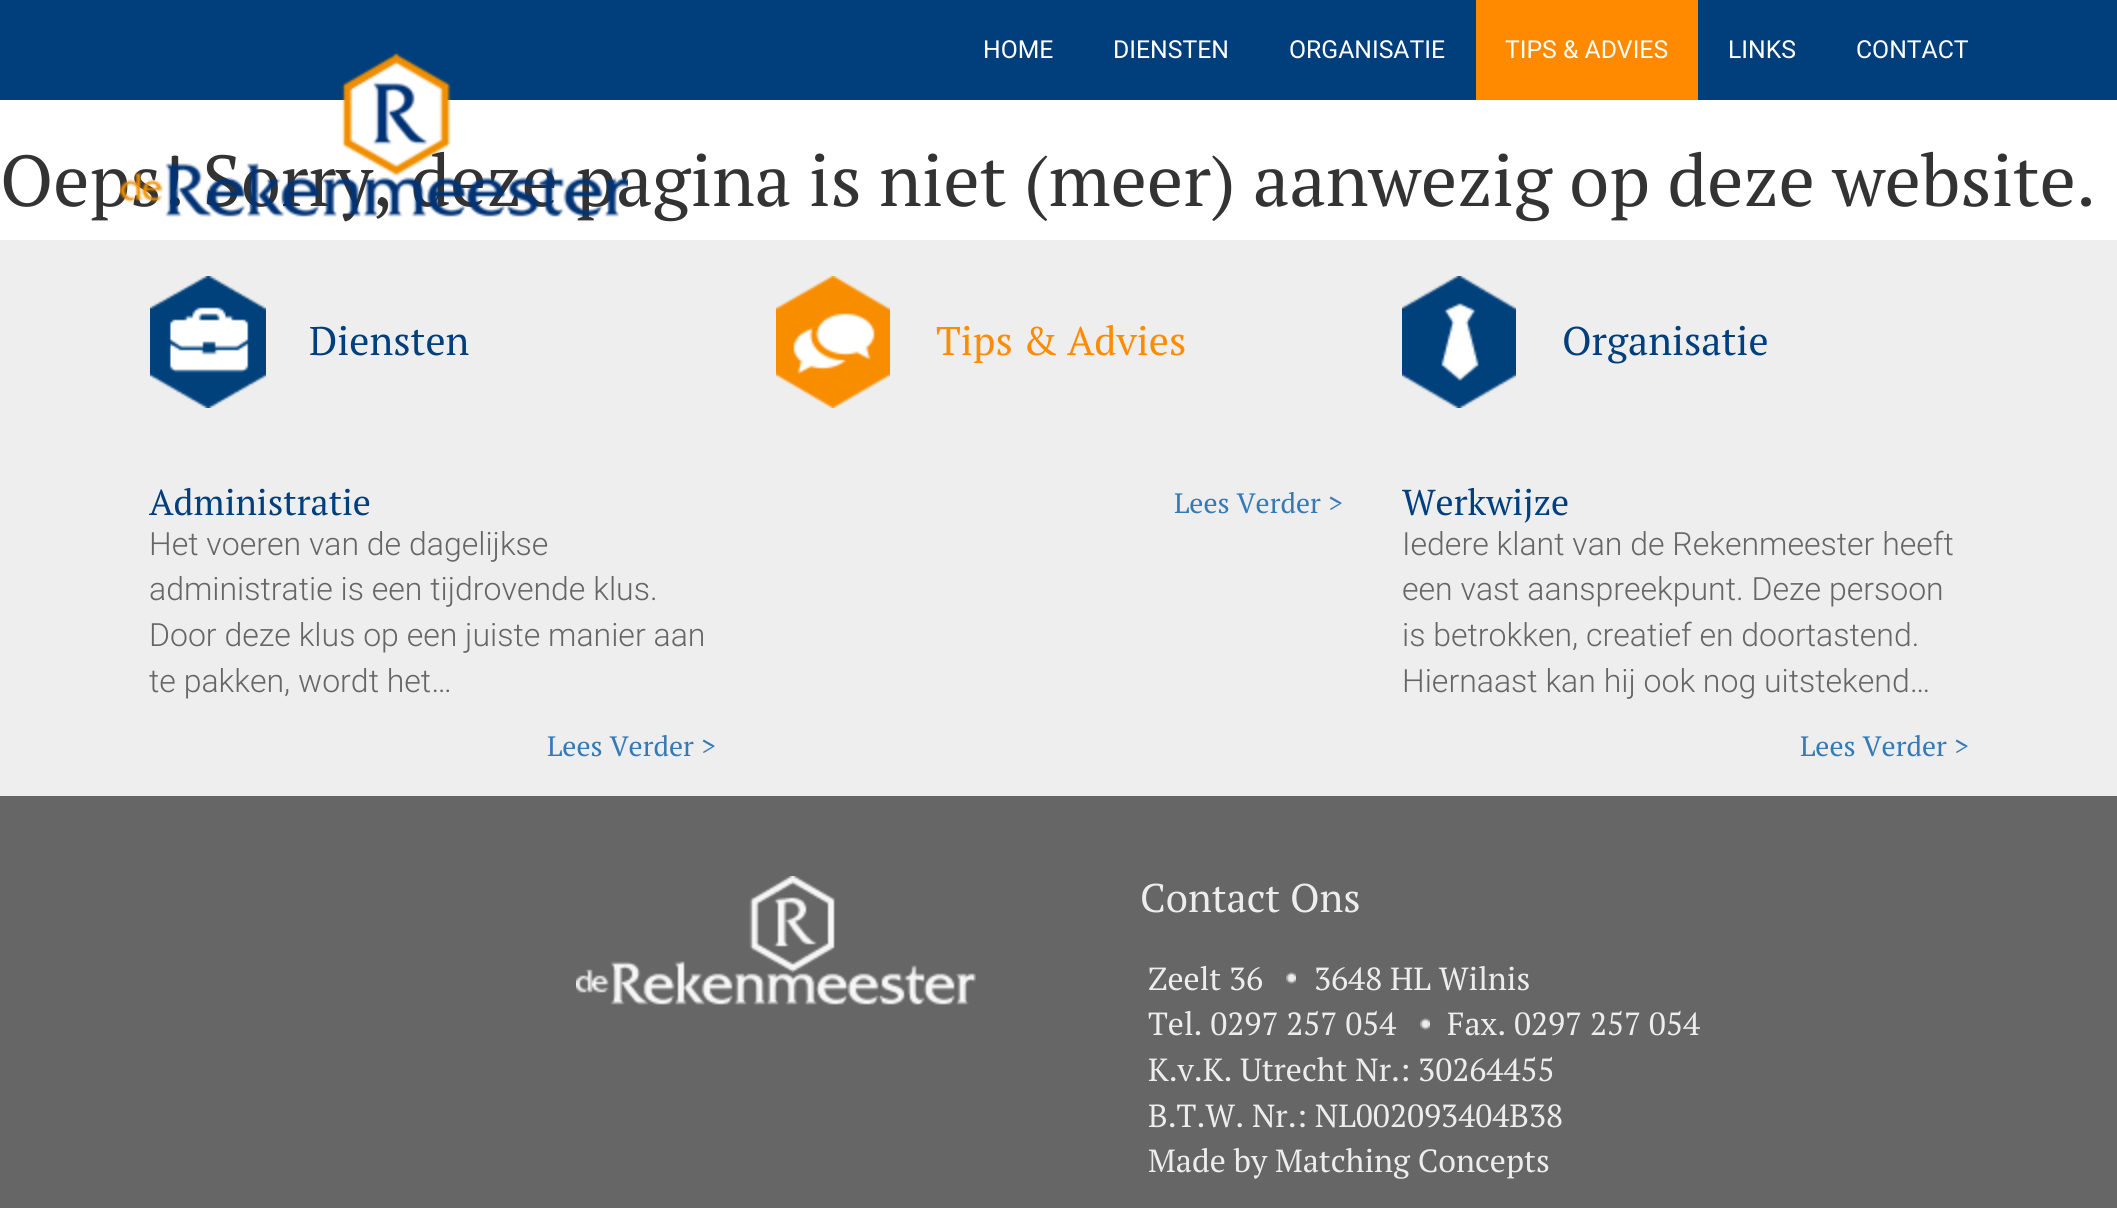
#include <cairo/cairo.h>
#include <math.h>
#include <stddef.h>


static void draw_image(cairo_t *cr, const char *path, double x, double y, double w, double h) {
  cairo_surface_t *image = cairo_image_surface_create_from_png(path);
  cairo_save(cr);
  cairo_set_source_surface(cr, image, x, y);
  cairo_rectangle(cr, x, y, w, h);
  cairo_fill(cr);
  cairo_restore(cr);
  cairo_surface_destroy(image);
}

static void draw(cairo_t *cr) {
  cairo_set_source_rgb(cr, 1, 1, 1);
  cairo_paint(cr);
  cairo_set_source_rgb(cr, 0, 63 / 255.0, 123 / 255.0);
  cairo_rectangle(cr, 0, 0, 2117, 100);
  cairo_fill(cr);
  cairo_set_source_rgb(cr, 1, 138 / 255.0, 0);
  cairo_rectangle(cr, 1476, 0, 222, 100);
  cairo_fill(cr);
  cairo_set_source_rgb(cr, 238 / 255.0, 238 / 255.0, 238 / 255.0);
  cairo_rectangle(cr, 0, 240, 2117, 556);
  cairo_fill(cr);
  draw_image(cr, "images/2.png", 150, 276, 116, 132);
  draw_image(cr, "images/3.png", 776, 276, 114, 132);
  draw_image(cr, "images/4.png", 1402, 276, 114, 132);
  cairo_set_source_rgb(cr, 102 / 255.0, 102 / 255.0, 102 / 255.0);
  cairo_rectangle(cr, 0, 796, 2117, 412);
  cairo_fill(cr);
  draw_image(cr, "images/5.png", 576, 876, 400, 129);
  draw_image(cr, "images/6.png", 1286, 972, 10, 12);
  draw_image(cr, "images/6.png", 1420, 1018, 10, 12);
  cairo_select_font_face(cr, "Roboto", CAIRO_FONT_SLANT_NORMAL, CAIRO_FONT_WEIGHT_NORMAL);
  cairo_set_font_size(cr, 24.75);
  cairo_set_source_rgb(cr, 1, 1, 1);
  cairo_move_to(cr, 983, 58);
  cairo_show_text(cr, "HOME");
  cairo_move_to(cr, 1113, 58);
  cairo_show_text(cr, "DIENSTEN");
  cairo_move_to(cr, 1289, 58);
  cairo_show_text(cr, "ORGANISATIE");
  cairo_move_to(cr, 1505, 58);
  cairo_show_text(cr, "TIPS & ADVIES");
  cairo_move_to(cr, 1728, 58);
  cairo_show_text(cr, "LINKS");
  cairo_move_to(cr, 1856, 58);
  cairo_show_text(cr, "CONTACT");
  cairo_select_font_face(cr, "PT Serif", CAIRO_FONT_SLANT_NORMAL, CAIRO_FONT_WEIGHT_NORMAL);
  cairo_set_font_size(cr, 72);
  cairo_set_source_rgb(cr, 51 / 255.0, 51 / 255.0, 51 / 255.0);
  cairo_move_to(cr, 0, 206);
  cairo_show_text(cr, "Oeps! Sorry, deze pagina is niet (meer) aanwezig op deze website.");
  draw_image(cr, "images/1.png", 120, 53, 508, 164);
  cairo_set_font_size(cr, 40);
  cairo_set_source_rgb(cr, 0, 63 / 255.0, 125 / 255.0);
  cairo_move_to(cr, 309, 355);
  cairo_show_text(cr, "Diensten");
  cairo_set_font_size(cr, 36);
  cairo_move_to(cr, 149, 515);
  cairo_show_text(cr, "Administratie");
  cairo_select_font_face(cr, "Roboto Light", CAIRO_FONT_SLANT_NORMAL, CAIRO_FONT_WEIGHT_NORMAL);
  cairo_set_font_size(cr, 32);
  cairo_set_source_rgb(cr, 102 / 255.0, 102 / 255.0, 102 / 255.0);
  cairo_move_to(cr, 149, 555);
  cairo_show_text(cr, "Het voeren van de dagelijkse");
  cairo_move_to(cr, 149, 600);
  cairo_show_text(cr, "administratie is een tijdrovende klus.");
  cairo_move_to(cr, 149, 646);
  cairo_show_text(cr, "Door deze klus op een juiste manier aan");
  cairo_move_to(cr, 149, 692);
  cairo_show_text(cr, "te pakken, wordt het…");
  cairo_select_font_face(cr, "PT Serif", CAIRO_FONT_SLANT_NORMAL, CAIRO_FONT_WEIGHT_NORMAL);
  cairo_set_font_size(cr, 28);
  cairo_set_source_rgb(cr, 51 / 255.0, 122 / 255.0, 183 / 255.0);
  cairo_move_to(cr, 547, 756);
  cairo_show_text(cr, "Lees Verder >");
  cairo_set_font_size(cr, 40);
  cairo_set_source_rgb(cr, 1, 140 / 255.0, 0);
  cairo_move_to(cr, 936, 355);
  cairo_show_text(cr, "Tips & Advies");
  cairo_set_font_size(cr, 28);
  cairo_set_source_rgb(cr, 51 / 255.0, 122 / 255.0, 183 / 255.0);
  cairo_move_to(cr, 1174, 513);
  cairo_show_text(cr, "Lees Verder >");
  cairo_set_font_size(cr, 40);
  cairo_set_source_rgb(cr, 0, 63 / 255.0, 125 / 255.0);
  cairo_move_to(cr, 1562, 355);
  cairo_show_text(cr, "Organisatie");
  cairo_set_font_size(cr, 36);
  cairo_move_to(cr, 1402, 515);
  cairo_show_text(cr, "Werkwijze");
  cairo_select_font_face(cr, "Roboto Light", CAIRO_FONT_SLANT_NORMAL, CAIRO_FONT_WEIGHT_NORMAL);
  cairo_set_font_size(cr, 32);
  cairo_set_source_rgb(cr, 102 / 255.0, 102 / 255.0, 102 / 255.0);
  cairo_move_to(cr, 1402, 555);
  cairo_show_text(cr, "Iedere klant van de Rekenmeester heeft");
  cairo_move_to(cr, 1402, 600);
  cairo_show_text(cr, "een vast aanspreekpunt. Deze persoon");
  cairo_move_to(cr, 1402, 646);
  cairo_show_text(cr, "is betrokken, creatief en doortastend.");
  cairo_move_to(cr, 1402, 692);
  cairo_show_text(cr, "Hiernaast kan hij ook nog uitstekend…");
  cairo_select_font_face(cr, "PT Serif", CAIRO_FONT_SLANT_NORMAL, CAIRO_FONT_WEIGHT_NORMAL);
  cairo_set_font_size(cr, 28);
  cairo_set_source_rgb(cr, 51 / 255.0, 122 / 255.0, 183 / 255.0);
  cairo_move_to(cr, 1800, 756);
  cairo_show_text(cr, "Lees Verder >");
  cairo_set_font_size(cr, 40);
  cairo_set_source_rgb(cr, 237 / 255.0, 237 / 255.0, 237 / 255.0);
  cairo_move_to(cr, 1140, 912);
  cairo_show_text(cr, "Contact Ons");
  cairo_set_font_size(cr, 32);
  cairo_move_to(cr, 1148, 990);
  cairo_show_text(cr, "Zeelt 36");
  cairo_move_to(cr, 1314, 990);
  cairo_show_text(cr, "3648 HL Wilnis");
  cairo_move_to(cr, 1148, 1035);
  cairo_show_text(cr, "Tel. 0297 257 054");
  cairo_move_to(cr, 1447, 1035);
  cairo_show_text(cr, "Fax. 0297 257 054");
  cairo_move_to(cr, 1148, 1081);
  cairo_show_text(cr, "K.v.K. Utrecht Nr.: 30264455");
  cairo_move_to(cr, 1148, 1127);
  cairo_show_text(cr, "B.T.W. Nr.: NL002093404B38");
  cairo_move_to(cr, 1148, 1172);
  cairo_show_text(cr, "Made by Matching Concepts");
}

int main(void) {
  cairo_surface_t *surface = cairo_image_surface_create(CAIRO_FORMAT_RGB24, 2117, 1208);
  cairo_t *cr = cairo_create(surface);
  cairo_font_options_t *options = cairo_font_options_create();
  cairo_font_options_set_hint_metrics(options, CAIRO_HINT_METRICS_OFF);
  cairo_font_options_set_hint_style(options, CAIRO_HINT_STYLE_NONE);
  cairo_set_font_options(cr, options);
  cairo_set_miter_limit(cr, 4);
  draw(cr);
  cairo_surface_write_to_png(surface, "out.png");
  cairo_font_options_destroy(options);
  cairo_destroy(cr);
  cairo_surface_destroy(surface);
  return 0;
}
